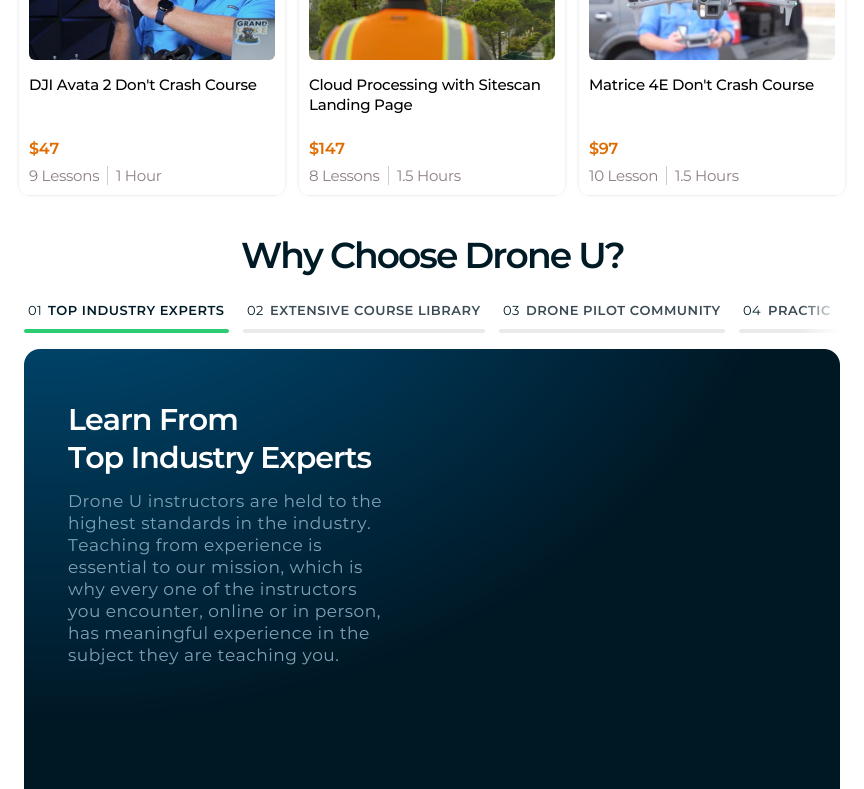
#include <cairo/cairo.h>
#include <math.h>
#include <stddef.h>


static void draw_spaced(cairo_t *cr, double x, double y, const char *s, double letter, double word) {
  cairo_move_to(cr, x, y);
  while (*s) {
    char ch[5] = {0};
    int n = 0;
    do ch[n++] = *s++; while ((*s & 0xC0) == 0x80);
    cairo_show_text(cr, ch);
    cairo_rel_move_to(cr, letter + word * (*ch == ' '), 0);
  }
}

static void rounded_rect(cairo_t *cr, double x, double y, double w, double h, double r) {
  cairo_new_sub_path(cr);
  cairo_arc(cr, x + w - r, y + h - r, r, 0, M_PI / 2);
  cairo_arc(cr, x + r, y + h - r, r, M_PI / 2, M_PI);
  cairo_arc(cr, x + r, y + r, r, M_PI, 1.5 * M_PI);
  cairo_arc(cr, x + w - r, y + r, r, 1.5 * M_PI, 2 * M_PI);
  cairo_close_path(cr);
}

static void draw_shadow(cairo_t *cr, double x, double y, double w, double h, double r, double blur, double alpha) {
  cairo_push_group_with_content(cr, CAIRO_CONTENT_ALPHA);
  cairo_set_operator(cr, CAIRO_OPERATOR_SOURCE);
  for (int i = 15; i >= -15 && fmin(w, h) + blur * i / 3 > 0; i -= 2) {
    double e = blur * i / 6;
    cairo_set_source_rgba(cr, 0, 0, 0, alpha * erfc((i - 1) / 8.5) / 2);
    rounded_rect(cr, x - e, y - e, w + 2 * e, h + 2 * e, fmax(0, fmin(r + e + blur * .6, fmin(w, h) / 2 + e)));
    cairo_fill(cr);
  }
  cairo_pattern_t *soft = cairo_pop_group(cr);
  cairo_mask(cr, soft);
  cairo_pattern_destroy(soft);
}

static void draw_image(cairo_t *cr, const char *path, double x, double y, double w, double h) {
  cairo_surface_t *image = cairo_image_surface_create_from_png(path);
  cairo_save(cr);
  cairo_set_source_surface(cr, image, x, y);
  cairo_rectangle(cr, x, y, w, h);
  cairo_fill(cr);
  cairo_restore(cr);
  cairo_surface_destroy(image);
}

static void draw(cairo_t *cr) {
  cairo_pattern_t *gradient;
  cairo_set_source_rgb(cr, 1, 1, 1);
  cairo_paint(cr);
  cairo_save(cr);
  cairo_set_fill_rule(cr, CAIRO_FILL_RULE_EVEN_ODD);
  cairo_new_path(cr);
  cairo_move_to(cr, 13, 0);
  cairo_line_to(cr, 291, 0);
  cairo_line_to(cr, 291, 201);
  cairo_line_to(cr, 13, 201);
  cairo_close_path(cr);
  cairo_move_to(cr, 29, -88);
  cairo_line_to(cr, 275, -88);
  cairo_curve_to(cr, 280.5, -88, 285, -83.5, 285, -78);
  cairo_line_to(cr, 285, 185);
  cairo_curve_to(cr, 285, 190.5, 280.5, 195, 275, 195);
  cairo_line_to(cr, 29, 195);
  cairo_curve_to(cr, 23.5, 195, 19, 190.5, 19, 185);
  cairo_line_to(cr, 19, -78);
  cairo_curve_to(cr, 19, -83.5, 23.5, -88, 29, -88);
  cairo_close_path(cr);
  cairo_clip(cr);
  cairo_set_source_rgb(cr, 0, 0, 0);
  draw_shadow(cr, 19, -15, 266, 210, 10, 1.5, 0.14);
  cairo_restore(cr);
  cairo_set_source_rgb(cr, 1, 1, 1);
  rounded_rect(cr, 19, -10, 266, 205, 10);
  cairo_fill(cr);
  draw_image(cr, "images/1.png", 29, 0, 246, 60);
  cairo_set_source_rgb(cr, 204 / 255.0, 204 / 255.0, 204 / 255.0);
  cairo_rectangle(cr, 107, 166, 1, 19);
  cairo_fill(cr);
  cairo_save(cr);
  cairo_set_fill_rule(cr, CAIRO_FILL_RULE_EVEN_ODD);
  cairo_new_path(cr);
  cairo_move_to(cr, 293, 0);
  cairo_line_to(cr, 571, 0);
  cairo_line_to(cr, 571, 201);
  cairo_line_to(cr, 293, 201);
  cairo_close_path(cr);
  cairo_move_to(cr, 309, -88);
  cairo_line_to(cr, 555, -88);
  cairo_curve_to(cr, 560.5, -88, 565, -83.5, 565, -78);
  cairo_line_to(cr, 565, 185);
  cairo_curve_to(cr, 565, 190.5, 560.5, 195, 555, 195);
  cairo_line_to(cr, 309, 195);
  cairo_curve_to(cr, 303.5, 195, 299, 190.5, 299, 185);
  cairo_line_to(cr, 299, -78);
  cairo_curve_to(cr, 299, -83.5, 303.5, -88, 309, -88);
  cairo_close_path(cr);
  cairo_clip(cr);
  cairo_set_source_rgb(cr, 0, 0, 0);
  draw_shadow(cr, 299, -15, 266, 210, 10, 1.5, 0.14);
  cairo_restore(cr);
  cairo_set_source_rgb(cr, 1, 1, 1);
  rounded_rect(cr, 299, -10, 266, 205, 10);
  cairo_fill(cr);
  draw_image(cr, "images/2.png", 309, 0, 246, 60);
  cairo_set_source_rgb(cr, 204 / 255.0, 204 / 255.0, 204 / 255.0);
  cairo_rectangle(cr, 388, 166, 1, 19);
  cairo_fill(cr);
  cairo_save(cr);
  cairo_set_fill_rule(cr, CAIRO_FILL_RULE_EVEN_ODD);
  cairo_new_path(cr);
  cairo_move_to(cr, 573, 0);
  cairo_line_to(cr, 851, 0);
  cairo_line_to(cr, 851, 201);
  cairo_line_to(cr, 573, 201);
  cairo_close_path(cr);
  cairo_move_to(cr, 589, -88);
  cairo_line_to(cr, 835, -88);
  cairo_curve_to(cr, 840.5, -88, 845, -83.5, 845, -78);
  cairo_line_to(cr, 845, 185);
  cairo_curve_to(cr, 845, 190.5, 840.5, 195, 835, 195);
  cairo_line_to(cr, 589, 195);
  cairo_curve_to(cr, 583.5, 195, 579, 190.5, 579, 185);
  cairo_line_to(cr, 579, -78);
  cairo_curve_to(cr, 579, -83.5, 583.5, -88, 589, -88);
  cairo_close_path(cr);
  cairo_clip(cr);
  cairo_set_source_rgb(cr, 0, 0, 0);
  draw_shadow(cr, 579, -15, 266, 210, 10, 1.5, 0.14);
  cairo_restore(cr);
  cairo_set_source_rgb(cr, 1, 1, 1);
  rounded_rect(cr, 579, -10, 266, 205, 10);
  cairo_fill(cr);
  draw_image(cr, "images/3.png", 589, 0, 246, 60);
  cairo_set_source_rgb(cr, 204 / 255.0, 204 / 255.0, 204 / 255.0);
  cairo_rectangle(cr, 666, 166, 1, 19);
  cairo_fill(cr);
  cairo_set_source_rgb(cr, 46 / 255.0, 204 / 255.0, 113 / 255.0);
  rounded_rect(cr, 24, 329, 205, 4, 2);
  cairo_fill(cr);
  cairo_set_source_rgb(cr, 234 / 255.0, 234 / 255.0, 234 / 255.0);
  rounded_rect(cr, 243, 329, 242, 4, 2);
  cairo_fill(cr);
  rounded_rect(cr, 499, 329, 226, 4, 2);
  cairo_fill(cr);
  cairo_new_path(cr);
  cairo_move_to(cr, 741, 329);
  cairo_line_to(cr, 840, 329);
  cairo_line_to(cr, 840, 333);
  cairo_line_to(cr, 741, 333);
  cairo_curve_to(cr, 740, 333, 739, 332, 739, 331);
  cairo_curve_to(cr, 739, 330, 740, 329, 741, 329);
  cairo_close_path(cr);
  cairo_fill(cr);
  gradient = cairo_pattern_create_radial(0, 0, 0, 0, 0, 1);
  cairo_pattern_set_matrix(gradient, &(cairo_matrix_t){1.0 / 1499, 0, 0, 1.0 / 1122, -1.0 * 47 / 1499, -1.0 * 154 / 1122});
  cairo_pattern_add_color_stop_rgba(gradient, 0, 0, 88 / 255.0, 138 / 255.0, 1);
  cairo_pattern_add_color_stop_rgba(gradient, 0.51, 0, 23 / 255.0, 36 / 255.0, 1);
  cairo_set_source(cr, gradient);
  cairo_pattern_destroy(gradient);
  rounded_rect(cr, 24, 349, 816, 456, 16);
  cairo_fill(cr);
  cairo_select_font_face(cr, "Montserrat Medium", CAIRO_FONT_SLANT_NORMAL, CAIRO_FONT_WEIGHT_NORMAL);
  cairo_set_font_size(cr, 15);
  cairo_set_source_rgb(cr, 0, 0, 0);
  draw_spaced(cr, 29, 90, "DJI Avata 2 Don't Crash Course", -0.25, 0);
  cairo_select_font_face(cr, "Montserrat SemiBold", CAIRO_FONT_SLANT_NORMAL, CAIRO_FONT_WEIGHT_NORMAL);
  cairo_set_font_size(cr, 16);
  cairo_set_source_rgb(cr, 223 / 255.0, 106 / 255.0, 0);
  draw_spaced(cr, 29, 154, "$47", -0.25, 0);
  cairo_select_font_face(cr, "Montserrat", CAIRO_FONT_SLANT_NORMAL, CAIRO_FONT_WEIGHT_NORMAL);
  cairo_set_font_size(cr, 15);
  cairo_set_source_rgb(cr, 141 / 255.0, 126 / 255.0, 126 / 255.0);
  draw_spaced(cr, 29, 181, "9 Lessons", -0.25, 0);
  draw_spaced(cr, 116, 181, "1 Hour", -0.25, 0);
  cairo_select_font_face(cr, "Montserrat Medium", CAIRO_FONT_SLANT_NORMAL, CAIRO_FONT_WEIGHT_NORMAL);
  cairo_set_source_rgb(cr, 0, 0, 0);
  draw_spaced(cr, 309, 90, "Cloud Processing with Sitescan", -0.25, 0);
  draw_spaced(cr, 309, 110, "Landing Page", -0.25, 0);
  cairo_select_font_face(cr, "Montserrat SemiBold", CAIRO_FONT_SLANT_NORMAL, CAIRO_FONT_WEIGHT_NORMAL);
  cairo_set_font_size(cr, 16);
  cairo_set_source_rgb(cr, 223 / 255.0, 106 / 255.0, 0);
  draw_spaced(cr, 309, 154, "$147", -0.25, 0);
  cairo_select_font_face(cr, "Montserrat", CAIRO_FONT_SLANT_NORMAL, CAIRO_FONT_WEIGHT_NORMAL);
  cairo_set_font_size(cr, 15);
  cairo_set_source_rgb(cr, 141 / 255.0, 126 / 255.0, 126 / 255.0);
  draw_spaced(cr, 309, 181, "8 Lessons", -0.25, 0);
  draw_spaced(cr, 397, 181, "1.5 Hours", -0.25, 0);
  cairo_select_font_face(cr, "Montserrat Medium", CAIRO_FONT_SLANT_NORMAL, CAIRO_FONT_WEIGHT_NORMAL);
  cairo_set_source_rgb(cr, 0, 0, 0);
  draw_spaced(cr, 589, 90, "Matrice 4E Don't Crash Course", -0.25, 0);
  cairo_select_font_face(cr, "Montserrat SemiBold", CAIRO_FONT_SLANT_NORMAL, CAIRO_FONT_WEIGHT_NORMAL);
  cairo_set_font_size(cr, 16);
  cairo_set_source_rgb(cr, 223 / 255.0, 106 / 255.0, 0);
  draw_spaced(cr, 589, 154, "$97", -0.25, 0);
  cairo_select_font_face(cr, "Montserrat", CAIRO_FONT_SLANT_NORMAL, CAIRO_FONT_WEIGHT_NORMAL);
  cairo_set_font_size(cr, 15);
  cairo_set_source_rgb(cr, 141 / 255.0, 126 / 255.0, 126 / 255.0);
  draw_spaced(cr, 589, 181, "10 Lesson", -0.25, 0);
  draw_spaced(cr, 675, 181, "1.5 Hours", -0.25, 0);
  cairo_select_font_face(cr, "Montserrat SemiBold", CAIRO_FONT_SLANT_NORMAL, CAIRO_FONT_WEIGHT_NORMAL);
  cairo_set_font_size(cr, 36);
  cairo_set_source_rgb(cr, 0, 27 / 255.0, 38 / 255.0);
  draw_spaced(cr, 241, 268, "Why Choose Drone U?", -1.9, 0);
  cairo_select_font_face(cr, "Montserrat", CAIRO_FONT_SLANT_NORMAL, CAIRO_FONT_WEIGHT_NORMAL);
  cairo_set_font_size(cr, 13);
  draw_spaced(cr, 28, 315, "01", 0.5, 0);
  cairo_select_font_face(cr, "Montserrat SemiBold", CAIRO_FONT_SLANT_NORMAL, CAIRO_FONT_WEIGHT_NORMAL);
  draw_spaced(cr, 48, 315, "TOP INDUSTRY EXPERTS", 0.5, 0);
  cairo_select_font_face(cr, "Montserrat", CAIRO_FONT_SLANT_NORMAL, CAIRO_FONT_WEIGHT_NORMAL);
  draw_spaced(cr, 247, 315, "02", 0.5, 0);
  cairo_select_font_face(cr, "Montserrat SemiBold", CAIRO_FONT_SLANT_NORMAL, CAIRO_FONT_WEIGHT_NORMAL);
  cairo_set_source_rgb(cr, 58 / 255.0, 75 / 255.0, 85 / 255.0);
  draw_spaced(cr, 270, 315, "EXTENSIVE COURSE LIBRARY", 0.5, 0);
  cairo_select_font_face(cr, "Montserrat", CAIRO_FONT_SLANT_NORMAL, CAIRO_FONT_WEIGHT_NORMAL);
  cairo_set_source_rgb(cr, 0, 27 / 255.0, 38 / 255.0);
  draw_spaced(cr, 503, 315, "03", 0.5, 0);
  cairo_select_font_face(cr, "Montserrat SemiBold", CAIRO_FONT_SLANT_NORMAL, CAIRO_FONT_WEIGHT_NORMAL);
  cairo_set_source_rgb(cr, 58 / 255.0, 75 / 255.0, 85 / 255.0);
  draw_spaced(cr, 526, 315, "DRONE PILOT COMMUNITY", 0.5, 0);
  cairo_select_font_face(cr, "Montserrat", CAIRO_FONT_SLANT_NORMAL, CAIRO_FONT_WEIGHT_NORMAL);
  cairo_set_source_rgb(cr, 0, 27 / 255.0, 38 / 255.0);
  draw_spaced(cr, 743, 315, "04", 0.5, 0);
  cairo_select_font_face(cr, "Montserrat SemiBold", CAIRO_FONT_SLANT_NORMAL, CAIRO_FONT_WEIGHT_NORMAL);
  cairo_set_source_rgb(cr, 58 / 255.0, 75 / 255.0, 85 / 255.0);
  draw_spaced(cr, 768, 315, "PRACTIC", 0.5, 0);
  gradient = cairo_pattern_create_linear(840, 310, 800, 310);
  cairo_pattern_add_color_stop_rgba(gradient, 0, 1, 1, 1, 1);
  cairo_pattern_add_color_stop_rgba(gradient, 1, 1, 1, 1, 0);
  cairo_set_source(cr, gradient);
  cairo_pattern_destroy(gradient);
  cairo_rectangle(cr, 801, 305, 39, 28);
  cairo_fill(cr);
  cairo_set_font_size(cr, 30);
  cairo_set_source_rgb(cr, 1, 1, 1);
  draw_spaced(cr, 68, 430, "Learn From", -0.9, 0);
  draw_spaced(cr, 68, 468, "Top Industry Experts", -0.9, 0);
  cairo_select_font_face(cr, "Montserrat", CAIRO_FONT_SLANT_NORMAL, CAIRO_FONT_WEIGHT_NORMAL);
  cairo_set_font_size(cr, 17);
  cairo_set_source_rgb(cr, 127 / 255.0, 161 / 255.0, 181 / 255.0);
  draw_spaced(cr, 68, 507, "Drone U instructors are held to the", 0.5, 0);
  draw_spaced(cr, 68, 529, "highest standards in the industry.", 0.5, 0);
  draw_spaced(cr, 68, 551, "Teaching from experience is", 0.5, 0);
  draw_spaced(cr, 68, 573, "essential to our mission, which is", 0.5, 0);
  draw_spaced(cr, 68, 595, "why every one of the instructors", 0.5, 0);
  draw_spaced(cr, 68, 617, "you encounter, online or in person,", 0.5, 0);
  draw_spaced(cr, 68, 639, "has meaningful experience in the", 0.5, 0);
  draw_spaced(cr, 68, 661, "subject they are teaching you.", 0.5, 0);
}

int main(void) {
  cairo_surface_t *surface = cairo_image_surface_create(CAIRO_FORMAT_RGB24, 864, 789);
  cairo_t *cr = cairo_create(surface);
  cairo_font_options_t *options = cairo_font_options_create();
  cairo_font_options_set_hint_metrics(options, CAIRO_HINT_METRICS_OFF);
  cairo_font_options_set_hint_style(options, CAIRO_HINT_STYLE_NONE);
  cairo_set_font_options(cr, options);
  cairo_set_miter_limit(cr, 4);
  draw(cr);
  cairo_surface_write_to_png(surface, "out.png");
  cairo_font_options_destroy(options);
  cairo_destroy(cr);
  cairo_surface_destroy(surface);
  return 0;
}
